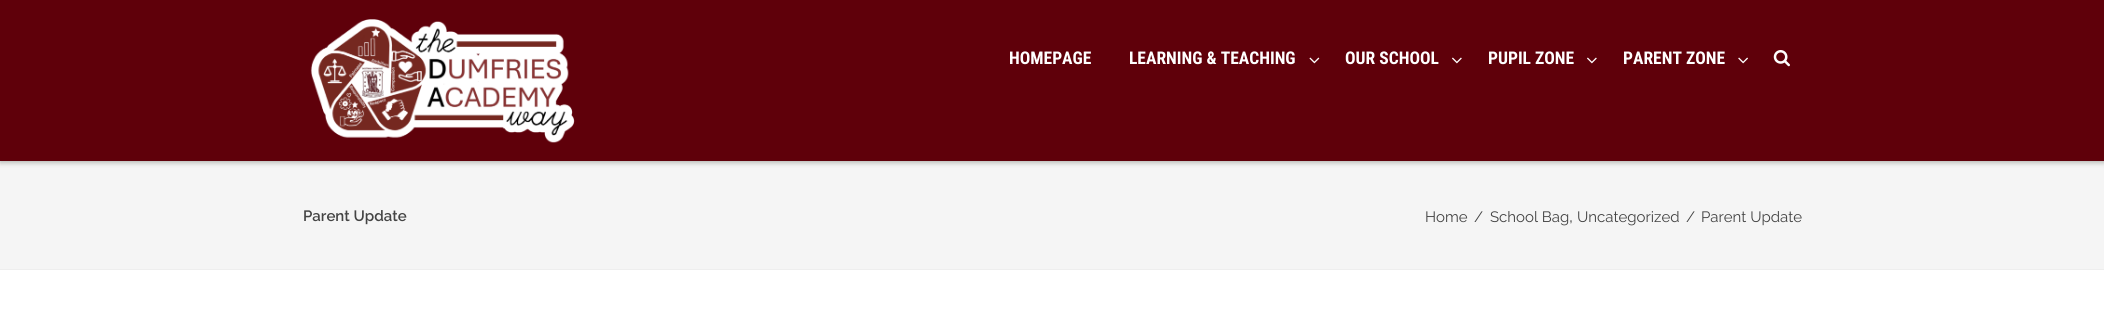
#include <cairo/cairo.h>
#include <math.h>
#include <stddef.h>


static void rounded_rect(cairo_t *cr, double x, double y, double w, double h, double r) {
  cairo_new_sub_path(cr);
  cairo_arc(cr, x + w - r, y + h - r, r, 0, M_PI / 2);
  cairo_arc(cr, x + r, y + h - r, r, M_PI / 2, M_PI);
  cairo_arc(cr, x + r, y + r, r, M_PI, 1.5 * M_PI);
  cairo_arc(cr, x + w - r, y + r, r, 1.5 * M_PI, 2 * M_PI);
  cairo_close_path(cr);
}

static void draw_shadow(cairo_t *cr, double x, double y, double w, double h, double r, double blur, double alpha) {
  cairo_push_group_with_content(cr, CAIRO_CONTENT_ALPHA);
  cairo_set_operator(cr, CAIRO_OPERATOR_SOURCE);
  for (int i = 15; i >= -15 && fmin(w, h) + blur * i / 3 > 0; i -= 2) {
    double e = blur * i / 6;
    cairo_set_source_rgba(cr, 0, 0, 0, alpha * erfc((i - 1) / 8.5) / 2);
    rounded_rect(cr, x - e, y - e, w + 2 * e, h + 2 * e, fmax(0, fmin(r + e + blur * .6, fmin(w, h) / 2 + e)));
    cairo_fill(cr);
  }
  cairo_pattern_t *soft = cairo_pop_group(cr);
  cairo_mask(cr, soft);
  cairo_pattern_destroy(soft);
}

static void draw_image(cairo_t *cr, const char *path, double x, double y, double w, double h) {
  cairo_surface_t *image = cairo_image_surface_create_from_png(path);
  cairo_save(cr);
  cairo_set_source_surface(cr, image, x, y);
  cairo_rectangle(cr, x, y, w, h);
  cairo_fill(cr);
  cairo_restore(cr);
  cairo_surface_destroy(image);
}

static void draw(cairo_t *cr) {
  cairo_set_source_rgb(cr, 1, 1, 1);
  cairo_paint(cr);
  cairo_set_source_rgb(cr, 95 / 255.0, 0, 10 / 255.0);
  cairo_rectangle(cr, 0, 0, 2104, 161);
  cairo_fill(cr);
  cairo_set_source_rgb(cr, 245 / 255.0, 245 / 255.0, 245 / 255.0);
  cairo_rectangle(cr, 0, 162, 2104, 107);
  cairo_fill(cr);
  cairo_set_source_rgb(cr, 238 / 255.0, 238 / 255.0, 238 / 255.0);
  cairo_rectangle(cr, 0, 161, 2104, 1);
  cairo_fill(cr);
  cairo_save(cr);
  cairo_rectangle(cr, 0, 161, 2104, 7);
  cairo_clip(cr);
  cairo_set_source_rgb(cr, 167 / 255.0, 169 / 255.0, 164 / 255.0);
  draw_shadow(cr, 0, 1, 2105, 162, 0, 2.5, 0.75);
  cairo_restore(cr);
  draw_image(cr, "images/1.png", 310, 19, 265, 124);
  draw_image(cr, "images/2.png", 1309, 57, 11, 7);
  draw_image(cr, "images/3.png", 1452, 57, 10, 7);
  draw_image(cr, "images/3.png", 1587, 57, 10, 7);
  draw_image(cr, "images/4.png", 1738, 57, 10, 7);
  draw_image(cr, "images/5.png", 1773, 50, 17, 17);
  cairo_rectangle(cr, 0, 269, 2104, 1);
  cairo_fill(cr);
  cairo_select_font_face(cr, "Roboto Condensed", CAIRO_FONT_SLANT_NORMAL, CAIRO_FONT_WEIGHT_BOLD);
  cairo_set_font_size(cr, 17.5);
  cairo_set_source_rgb(cr, 1, 1, 1);
  cairo_move_to(cr, 1009, 64);
  cairo_show_text(cr, "HOMEPAGE");
  cairo_move_to(cr, 1129, 64);
  cairo_show_text(cr, "LEARNING & TEACHING");
  cairo_move_to(cr, 1345, 64);
  cairo_show_text(cr, "OUR SCHOOL");
  cairo_move_to(cr, 1488, 64);
  cairo_show_text(cr, "PUPIL ZONE");
  cairo_move_to(cr, 1623, 64);
  cairo_show_text(cr, "PARENT ZONE");
  cairo_select_font_face(cr, "Raleway SemiBold", CAIRO_FONT_SLANT_NORMAL, CAIRO_FONT_WEIGHT_NORMAL);
  cairo_set_font_size(cr, 15);
  cairo_set_source_rgb(cr, 68 / 255.0, 68 / 255.0, 68 / 255.0);
  cairo_move_to(cr, 303, 221);
  cairo_show_text(cr, "Parent Update");
  cairo_select_font_face(cr, "Raleway", CAIRO_FONT_SLANT_NORMAL, CAIRO_FONT_WEIGHT_NORMAL);
  cairo_move_to(cr, 1425, 222);
  cairo_show_text(cr, "Home");
  cairo_move_to(cr, 1474, 222);
  cairo_show_text(cr, "/");
  cairo_move_to(cr, 1490, 222);
  cairo_show_text(cr, "School Bag");
  cairo_set_font_size(cr, 17.5);
  cairo_move_to(cr, 1569, 222);
  cairo_show_text(cr, ",");
  cairo_set_font_size(cr, 15);
  cairo_move_to(cr, 1577, 222);
  cairo_show_text(cr, "Uncategorized");
  cairo_move_to(cr, 1686, 222);
  cairo_show_text(cr, "/");
  cairo_move_to(cr, 1701, 222);
  cairo_show_text(cr, "Parent Update");
}

int main(void) {
  cairo_surface_t *surface = cairo_image_surface_create(CAIRO_FORMAT_RGB24, 2104, 321);
  cairo_t *cr = cairo_create(surface);
  cairo_font_options_t *options = cairo_font_options_create();
  cairo_font_options_set_hint_metrics(options, CAIRO_HINT_METRICS_OFF);
  cairo_font_options_set_hint_style(options, CAIRO_HINT_STYLE_NONE);
  cairo_set_font_options(cr, options);
  cairo_set_miter_limit(cr, 4);
  draw(cr);
  cairo_surface_write_to_png(surface, "out.png");
  cairo_font_options_destroy(options);
  cairo_destroy(cr);
  cairo_surface_destroy(surface);
  return 0;
}
